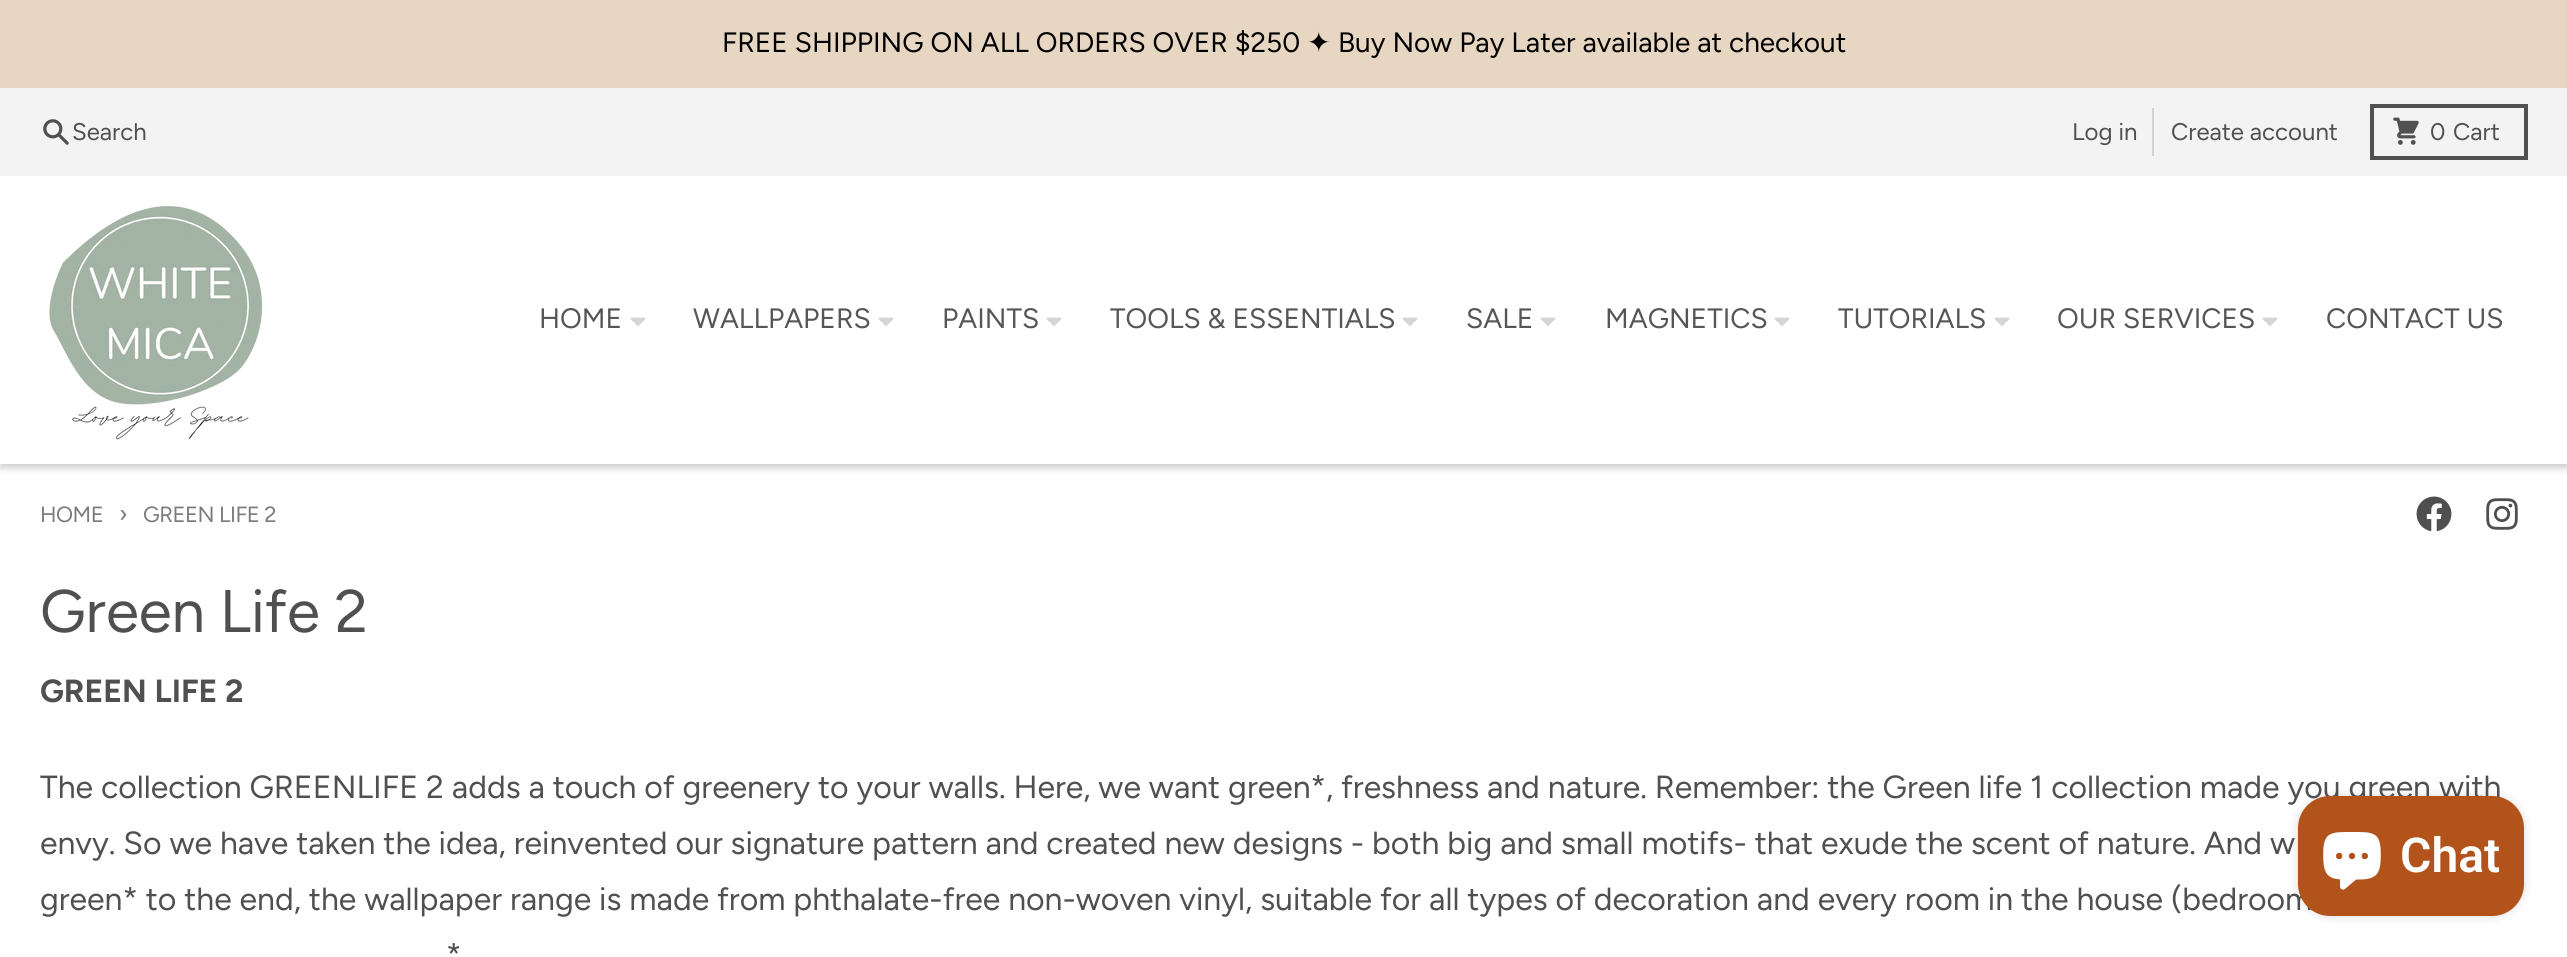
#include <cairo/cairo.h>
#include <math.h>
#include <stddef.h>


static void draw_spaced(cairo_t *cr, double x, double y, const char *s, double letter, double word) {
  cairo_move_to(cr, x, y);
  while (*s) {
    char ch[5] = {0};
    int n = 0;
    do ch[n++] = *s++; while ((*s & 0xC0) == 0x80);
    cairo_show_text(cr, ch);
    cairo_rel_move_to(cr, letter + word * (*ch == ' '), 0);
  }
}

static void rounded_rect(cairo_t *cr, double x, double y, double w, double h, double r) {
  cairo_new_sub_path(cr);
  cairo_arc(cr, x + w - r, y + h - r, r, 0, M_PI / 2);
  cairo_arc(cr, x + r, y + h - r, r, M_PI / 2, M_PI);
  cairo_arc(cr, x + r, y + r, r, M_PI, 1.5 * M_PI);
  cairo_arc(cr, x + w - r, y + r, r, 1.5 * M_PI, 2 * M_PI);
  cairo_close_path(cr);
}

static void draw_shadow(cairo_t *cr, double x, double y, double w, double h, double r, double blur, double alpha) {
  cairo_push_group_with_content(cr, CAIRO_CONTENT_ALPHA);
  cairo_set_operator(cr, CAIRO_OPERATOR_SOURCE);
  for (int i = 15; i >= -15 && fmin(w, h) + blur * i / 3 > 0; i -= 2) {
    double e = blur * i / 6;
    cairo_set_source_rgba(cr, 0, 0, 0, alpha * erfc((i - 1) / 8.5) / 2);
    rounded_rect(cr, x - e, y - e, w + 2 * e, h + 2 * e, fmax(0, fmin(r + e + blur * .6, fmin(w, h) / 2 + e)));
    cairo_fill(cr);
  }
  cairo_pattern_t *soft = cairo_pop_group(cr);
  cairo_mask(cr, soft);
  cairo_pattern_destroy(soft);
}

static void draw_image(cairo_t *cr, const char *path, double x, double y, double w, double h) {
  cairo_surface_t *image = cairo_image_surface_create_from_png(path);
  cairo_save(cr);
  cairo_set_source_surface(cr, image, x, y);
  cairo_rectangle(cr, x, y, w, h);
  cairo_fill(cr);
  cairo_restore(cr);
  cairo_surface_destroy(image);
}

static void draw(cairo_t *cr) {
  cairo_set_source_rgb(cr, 1, 1, 1);
  cairo_paint(cr);
  cairo_set_source_rgb(cr, 230 / 255.0, 214 / 255.0, 194 / 255.0);
  cairo_rectangle(cr, 0, 0, 2567, 88);
  cairo_fill(cr);
  cairo_set_source_rgb(cr, 0, 0, 0);
  draw_shadow(cr, 0, 180, 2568, 288, 0, 4, 0.2);
  cairo_set_source_rgb(cr, 243 / 255.0, 243 / 255.0, 243 / 255.0);
  cairo_rectangle(cr, 0, 88, 2567, 88);
  cairo_fill(cr);
  draw_image(cr, "images/1.png", 43, 119, 26, 26);
  cairo_set_source_rgb(cr, 210 / 255.0, 210 / 255.0, 210 / 255.0);
  cairo_rectangle(cr, 2152, 108, 2, 48);
  cairo_fill(cr);
  cairo_rectangle(cr, 2372, 106, 154, 52);
  cairo_set_source_rgb(cr, 80 / 255.0, 80 / 255.0, 80 / 255.0);
  cairo_set_line_width(cr, 4);
  cairo_stroke(cr);
  draw_image(cr, "images/2.png", 2393, 117, 26, 28);
  cairo_set_source_rgb(cr, 1, 1, 1);
  cairo_rectangle(cr, 0, 176, 2567, 288);
  cairo_fill(cr);
  draw_image(cr, "images/3.png", 49, 206, 214, 234);
  draw_image(cr, "images/4.png", 630, 317, 16, 9);
  draw_image(cr, "images/4.png", 878, 317, 16, 9);
  draw_image(cr, "images/4.png", 1046, 317, 16, 9);
  draw_image(cr, "images/4.png", 1402, 317, 16, 9);
  draw_image(cr, "images/4.png", 1540, 317, 16, 9);
  draw_image(cr, "images/4.png", 1774, 317, 16, 9);
  draw_image(cr, "images/4.png", 1994, 317, 16, 9);
  draw_image(cr, "images/4.png", 2262, 317, 16, 9);
  draw_image(cr, "images/5.png", 2416, 496, 36, 36);
  draw_image(cr, "images/6.png", 2486, 498, 32, 32);
  cairo_set_source_rgb(cr, 0, 0, 0);
  draw_shadow(cr, 2298, 796, 226, 120, 32, 5, 0.15);
  cairo_select_font_face(cr, "Figtree", CAIRO_FONT_SLANT_NORMAL, CAIRO_FONT_WEIGHT_NORMAL);
  cairo_set_font_size(cr, 28);
  cairo_set_source_rgb(cr, 0, 0, 0);
  cairo_move_to(cr, 722, 52);
  cairo_show_text(cr, "FREE SHIPPING ON ALL ORDERS OVER $250");
  cairo_select_font_face(cr, "DejaVu Sans", CAIRO_FONT_SLANT_NORMAL, CAIRO_FONT_WEIGHT_NORMAL);
  cairo_move_to(cr, 1307, 52);
  cairo_show_text(cr, "✦");
  cairo_select_font_face(cr, "Figtree", CAIRO_FONT_SLANT_NORMAL, CAIRO_FONT_WEIGHT_NORMAL);
  cairo_move_to(cr, 1338, 52);
  cairo_show_text(cr, "Buy Now Pay Later available at checkout");
  cairo_set_font_size(cr, 24);
  cairo_set_source_rgb(cr, 80 / 255.0, 80 / 255.0, 80 / 255.0);
  cairo_move_to(cr, 72, 140);
  cairo_show_text(cr, "Search");
  cairo_move_to(cr, 2072, 140);
  cairo_show_text(cr, "Log in");
  cairo_move_to(cr, 2171, 140);
  cairo_show_text(cr, "Create account");
  cairo_move_to(cr, 2430, 140);
  cairo_show_text(cr, "0");
  cairo_move_to(cr, 2453, 140);
  cairo_show_text(cr, "Cart");
  cairo_set_font_size(cr, 28);
  cairo_set_source_rgb(cr, 86 / 255.0, 86 / 255.0, 86 / 255.0);
  cairo_move_to(cr, 539, 328);
  cairo_show_text(cr, "HOME");
  cairo_move_to(cr, 693, 328);
  cairo_show_text(cr, "WALLPAPERS");
  cairo_move_to(cr, 942, 328);
  cairo_show_text(cr, "PAINTS");
  cairo_move_to(cr, 1110, 328);
  cairo_show_text(cr, "TOOLS & ESSENTIALS");
  cairo_move_to(cr, 1466, 328);
  cairo_show_text(cr, "SALE");
  cairo_move_to(cr, 1605, 328);
  cairo_show_text(cr, "MAGNETICS");
  cairo_move_to(cr, 1838, 328);
  cairo_show_text(cr, "TUTORIALS");
  cairo_move_to(cr, 2057, 328);
  cairo_show_text(cr, "OUR SERVICES");
  cairo_move_to(cr, 2326, 328);
  cairo_show_text(cr, "CONTACT US");
  cairo_set_font_size(cr, 22);
  cairo_set_source_rgb(cr, 123 / 255.0, 123 / 255.0, 123 / 255.0);
  draw_spaced(cr, 40, 522, "HOME", -0.5, 0);
  cairo_set_font_size(cr, 24);
  draw_spaced(cr, 119, 522, "›", -0.5, 0);
  cairo_set_font_size(cr, 22);
  draw_spaced(cr, 143, 522, "GREEN LIFE 2", -0.5, 0);
  cairo_set_font_size(cr, 60);
  cairo_set_source_rgb(cr, 80 / 255.0, 80 / 255.0, 80 / 255.0);
  cairo_move_to(cr, 40, 632);
  cairo_show_text(cr, "Green Life 2");
  cairo_select_font_face(cr, "Figtree", CAIRO_FONT_SLANT_NORMAL, CAIRO_FONT_WEIGHT_BOLD);
  cairo_set_font_size(cr, 32);
  cairo_move_to(cr, 40, 702);
  cairo_show_text(cr, "GREEN LIFE 2");
  cairo_select_font_face(cr, "Figtree", CAIRO_FONT_SLANT_NORMAL, CAIRO_FONT_WEIGHT_NORMAL);
  cairo_move_to(cr, 40, 798);
  cairo_show_text(cr, "The collection GREENLIFE 2 adds a touch of greenery to your walls. Here, we want green*, freshness and nature. Remember: the Green life 1 collection made you green with");
  cairo_move_to(cr, 40, 854);
  cairo_show_text(cr, "envy. So we have taken the idea, reinvented our signature pattern and created new designs - both big and small motifs- that exude the scent of nature. And w");
  cairo_move_to(cr, 40, 910);
  cairo_show_text(cr, "green* to the end, the wallpaper range is made from phthalate-free non-woven vinyl, suitable for all types of decoration and every room in the house (bedroom");
  cairo_move_to(cr, 446, 966);
  cairo_show_text(cr, "*");
  cairo_set_source_rgb(cr, 177 / 255.0, 83 / 255.0, 27 / 255.0);
  rounded_rect(cr, 2298, 796, 226, 120, 32);
  cairo_fill(cr);
  draw_image(cr, "images/7.png", 2323, 832, 58, 58);
  cairo_select_font_face(cr, "Roboto SemiBold", CAIRO_FONT_SLANT_NORMAL, CAIRO_FONT_WEIGHT_NORMAL);
  cairo_set_font_size(cr, 48);
  cairo_set_source_rgb(cr, 1, 1, 1);
  cairo_move_to(cr, 2400, 872);
  cairo_show_text(cr, "Chat");
}

int main(void) {
  cairo_surface_t *surface = cairo_image_surface_create(CAIRO_FORMAT_RGB24, 2567, 957);
  cairo_t *cr = cairo_create(surface);
  cairo_font_options_t *options = cairo_font_options_create();
  cairo_font_options_set_hint_metrics(options, CAIRO_HINT_METRICS_OFF);
  cairo_font_options_set_hint_style(options, CAIRO_HINT_STYLE_NONE);
  cairo_set_font_options(cr, options);
  cairo_set_miter_limit(cr, 4);
  draw(cr);
  cairo_surface_write_to_png(surface, "out.png");
  cairo_font_options_destroy(options);
  cairo_destroy(cr);
  cairo_surface_destroy(surface);
  return 0;
}
